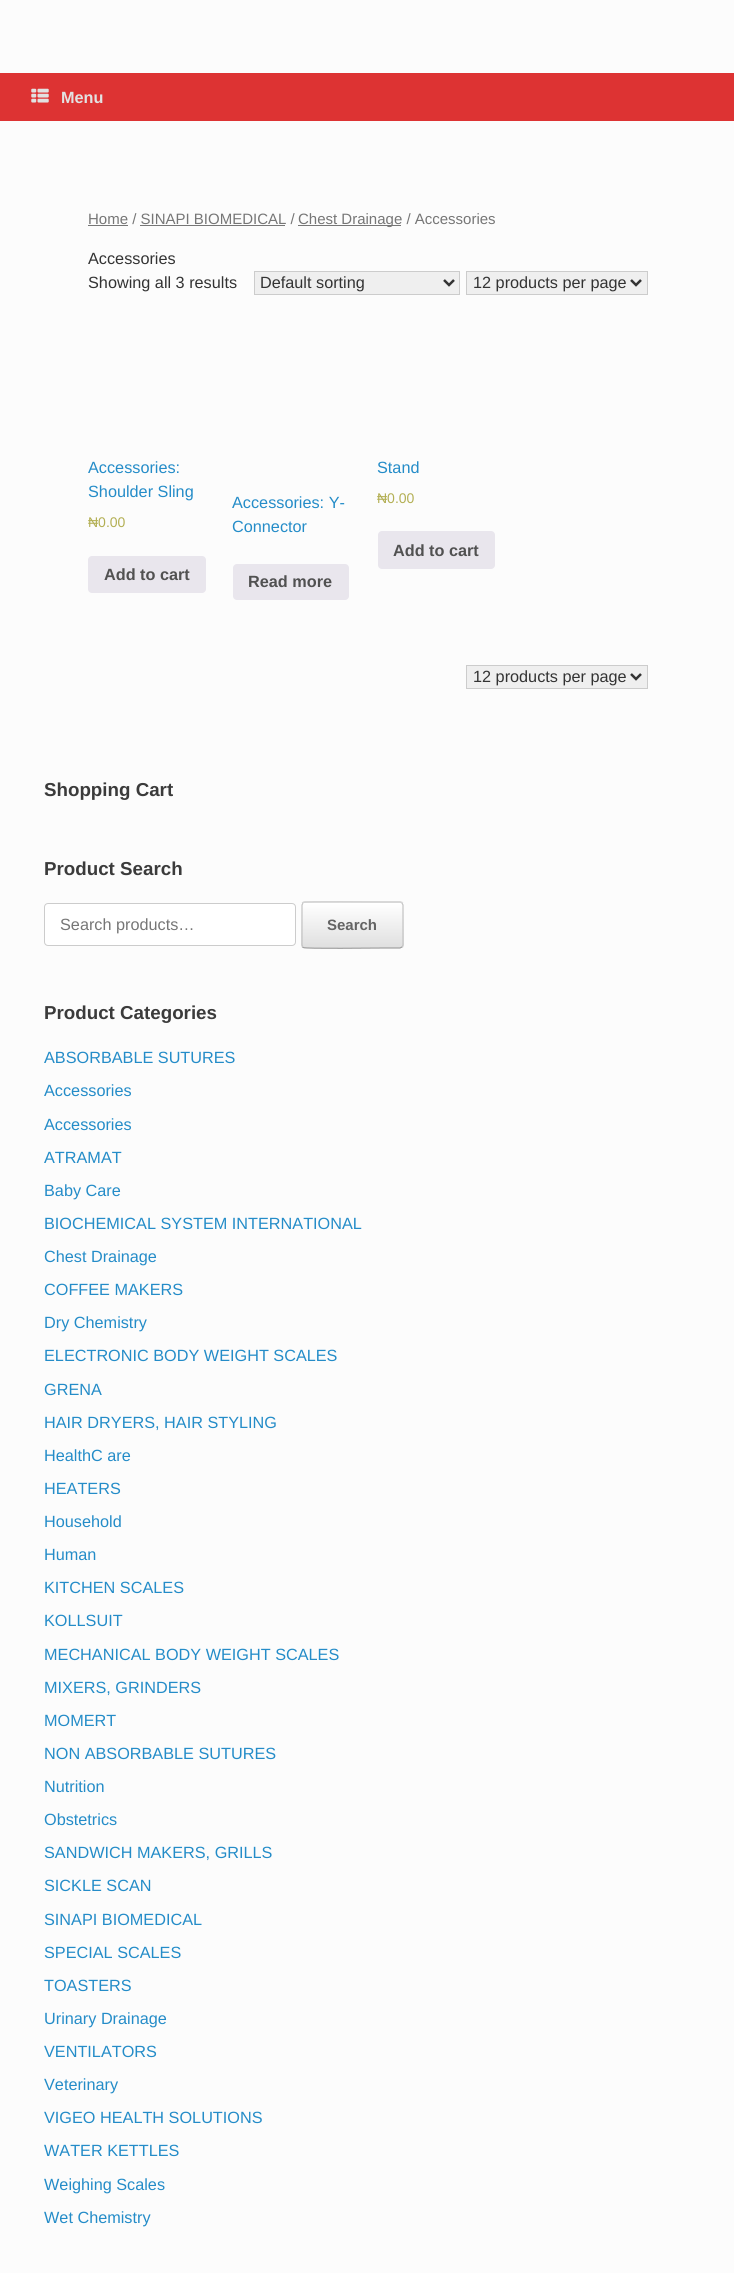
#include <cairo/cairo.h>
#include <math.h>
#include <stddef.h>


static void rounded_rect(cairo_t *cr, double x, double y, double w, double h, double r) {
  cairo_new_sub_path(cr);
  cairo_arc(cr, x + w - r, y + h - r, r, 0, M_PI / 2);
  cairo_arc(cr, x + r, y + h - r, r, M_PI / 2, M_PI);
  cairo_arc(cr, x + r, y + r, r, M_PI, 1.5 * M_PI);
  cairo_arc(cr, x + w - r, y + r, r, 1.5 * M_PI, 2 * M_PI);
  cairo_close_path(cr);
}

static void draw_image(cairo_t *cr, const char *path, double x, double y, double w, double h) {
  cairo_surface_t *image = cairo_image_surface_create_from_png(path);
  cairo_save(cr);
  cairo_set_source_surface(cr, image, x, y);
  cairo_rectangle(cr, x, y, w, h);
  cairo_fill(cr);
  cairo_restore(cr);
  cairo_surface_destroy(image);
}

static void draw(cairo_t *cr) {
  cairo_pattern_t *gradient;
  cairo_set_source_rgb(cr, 252 / 255.0, 252 / 255.0, 252 / 255.0);
  cairo_paint(cr);
  cairo_set_source_rgb(cr, 221 / 255.0, 51 / 255.0, 51 / 255.0);
  cairo_rectangle(cr, 0, 73, 734, 48);
  cairo_fill(cr);
  draw_image(cr, "images/1.png", 31, 88, 18, 15);
  cairo_set_source_rgb(cr, 118 / 255.0, 118 / 255.0, 118 / 255.0);
  cairo_rectangle(cr, 88, 225, 40, 1);
  cairo_fill(cr);
  cairo_rectangle(cr, 298, 225, 103, 1);
  cairo_fill(cr);
  cairo_rectangle(cr, 140, 225, 145, 1);
  cairo_fill(cr);
  cairo_set_source_rgb(cr, 239 / 255.0, 239 / 255.0, 239 / 255.0);
  cairo_rectangle(cr, 254.5, 271.5, 205, 23);
  cairo_fill_preserve(cr);
  cairo_set_source_rgb(cr, 204 / 255.0, 204 / 255.0, 204 / 255.0);
  cairo_set_line_width(cr, 1);
  cairo_stroke(cr);
  cairo_new_path(cr);
  cairo_move_to(cr, 444, 280);
  cairo_line_to(cr, 449, 285);
  cairo_line_to(cr, 454, 280);
  cairo_set_source_rgb(cr, 51 / 255.0, 51 / 255.0, 51 / 255.0);
  cairo_set_line_width(cr, 2.5);
  cairo_stroke(cr);
  cairo_set_source_rgb(cr, 239 / 255.0, 239 / 255.0, 239 / 255.0);
  cairo_rectangle(cr, 466.5, 271.5, 181, 23);
  cairo_fill_preserve(cr);
  cairo_set_source_rgb(cr, 204 / 255.0, 204 / 255.0, 204 / 255.0);
  cairo_set_line_width(cr, 1);
  cairo_stroke(cr);
  cairo_new_path(cr);
  cairo_move_to(cr, 631, 280);
  cairo_line_to(cr, 636, 285);
  cairo_line_to(cr, 641, 280);
  cairo_set_source_rgb(cr, 51 / 255.0, 51 / 255.0, 51 / 255.0);
  cairo_set_line_width(cr, 2.5);
  cairo_stroke(cr);
  cairo_set_source_rgb(cr, 233 / 255.0, 230 / 255.0, 237 / 255.0);
  rounded_rect(cr, 88, 556, 118, 37, 4);
  cairo_fill(cr);
  rounded_rect(cr, 233, 564, 116, 36, 4);
  cairo_fill(cr);
  rounded_rect(cr, 378, 531, 117, 38, 4);
  cairo_fill(cr);
  cairo_set_source_rgb(cr, 239 / 255.0, 239 / 255.0, 239 / 255.0);
  cairo_rectangle(cr, 466.5, 665.5, 181, 23);
  cairo_fill_preserve(cr);
  cairo_set_source_rgb(cr, 204 / 255.0, 204 / 255.0, 204 / 255.0);
  cairo_set_line_width(cr, 1);
  cairo_stroke(cr);
  cairo_new_path(cr);
  cairo_move_to(cr, 631, 674);
  cairo_line_to(cr, 636, 679);
  cairo_line_to(cr, 641, 674);
  cairo_set_source_rgb(cr, 51 / 255.0, 51 / 255.0, 51 / 255.0);
  cairo_set_line_width(cr, 2.5);
  cairo_stroke(cr);
  cairo_set_source_rgb(cr, 1, 1, 1);
  rounded_rect(cr, 44.5, 903.5, 251, 42, 3.5);
  cairo_fill_preserve(cr);
  cairo_set_source_rgb(cr, 204 / 255.0, 204 / 255.0, 204 / 255.0);
  cairo_set_line_width(cr, 1);
  cairo_stroke(cr);
  cairo_save(cr);
  rounded_rect(cr, 301, 901, 103, 48, 4);
  cairo_clip(cr);
  gradient = cairo_pattern_create_linear(303, 903, 303, 858);
  cairo_pattern_add_color_stop_rgba(gradient, 0, 223 / 255.0, 223 / 255.0, 223 / 255.0, 1);
  cairo_pattern_add_color_stop_rgba(gradient, 1, 1, 1, 1, 1);
  cairo_set_source(cr, gradient);
  cairo_pattern_destroy(gradient);
  cairo_rectangle(cr, 301, 901, 103, 2);
  cairo_fill(cr);
  gradient = cairo_pattern_create_linear(303, 948, 303, 903);
  cairo_pattern_add_color_stop_rgba(gradient, 0, 223 / 255.0, 223 / 255.0, 223 / 255.0, 1);
  cairo_pattern_add_color_stop_rgba(gradient, 1, 1, 1, 1, 1);
  cairo_set_source(cr, gradient);
  cairo_pattern_destroy(gradient);
  cairo_rectangle(cr, 301, 903, 103, 45);
  cairo_fill(cr);
  gradient = cairo_pattern_create_linear(303, 993, 303, 948);
  cairo_pattern_add_color_stop_rgba(gradient, 0, 223 / 255.0, 223 / 255.0, 223 / 255.0, 1);
  cairo_pattern_add_color_stop_rgba(gradient, 1, 1, 1, 1, 1);
  cairo_set_source(cr, gradient);
  cairo_pattern_destroy(gradient);
  cairo_rectangle(cr, 301, 948, 103, 1);
  cairo_fill(cr);
  cairo_restore(cr);
  cairo_new_path(cr);
  cairo_move_to(cr, 303, 903);
  cairo_line_to(cr, 303, 902.5);
  cairo_curve_to(cr, 305, 901, 375.5, 902, 384, 902);
  cairo_line_to(cr, 400, 902);
  cairo_line_to(cr, 402, 903);
  cairo_set_source_rgb(cr, 210 / 255.0, 210 / 255.0, 210 / 255.0);
  cairo_set_line_width(cr, 1.2);
  cairo_stroke(cr);
  cairo_new_path(cr);
  cairo_move_to(cr, 402, 903);
  cairo_line_to(cr, 403, 905);
  cairo_line_to(cr, 403, 945);
  cairo_line_to(cr, 402, 947);
  cairo_set_source_rgb(cr, 195 / 255.0, 195 / 255.0, 195 / 255.0);
  cairo_stroke(cr);
  cairo_new_path(cr);
  cairo_move_to(cr, 402, 947);
  cairo_line_to(cr, 400, 948);
  cairo_line_to(cr, 384, 948);
  cairo_curve_to(cr, 375.5, 948, 305, 949, 303, 947.5);
  cairo_line_to(cr, 303, 947);
  cairo_set_source_rgb(cr, 159 / 255.0, 159 / 255.0, 159 / 255.0);
  cairo_stroke(cr);
  cairo_new_path(cr);
  cairo_move_to(cr, 303, 947);
  cairo_line_to(cr, 302, 945);
  cairo_line_to(cr, 302, 905);
  cairo_line_to(cr, 303, 903);
  cairo_set_source_rgb(cr, 195 / 255.0, 195 / 255.0, 195 / 255.0);
  cairo_stroke(cr);
  cairo_select_font_face(cr, "Liberation Sans", CAIRO_FONT_SLANT_NORMAL, CAIRO_FONT_WEIGHT_BOLD);
  cairo_set_font_size(cr, 16.25);
  cairo_set_source_rgb(cr, 226 / 255.0, 226 / 255.0, 226 / 255.0);
  cairo_move_to(cr, 61, 103);
  cairo_show_text(cr, "Menu");
  cairo_select_font_face(cr, "Liberation Sans", CAIRO_FONT_SLANT_NORMAL, CAIRO_FONT_WEIGHT_NORMAL);
  cairo_set_font_size(cr, 15);
  cairo_set_source_rgb(cr, 118 / 255.0, 118 / 255.0, 118 / 255.0);
  cairo_move_to(cr, 88, 224);
  cairo_show_text(cr, "Home / SINAPI BIOMEDICAL /");
  cairo_move_to(cr, 298, 224);
  cairo_show_text(cr, "Chest Drainage / Accessories");
  cairo_set_font_size(cr, 16.25);
  cairo_set_source_rgb(cr, 51 / 255.0, 51 / 255.0, 51 / 255.0);
  cairo_move_to(cr, 88, 264);
  cairo_show_text(cr, "Accessories");
  cairo_move_to(cr, 88, 288);
  cairo_show_text(cr, "Showing all 3 results");
  cairo_move_to(cr, 260, 288);
  cairo_show_text(cr, "Default sorting");
  cairo_move_to(cr, 473, 288);
  cairo_show_text(cr, "12 products per page");
  cairo_set_source_rgb(cr, 36 / 255.0, 140 / 255.0, 200 / 255.0);
  cairo_move_to(cr, 88, 473);
  cairo_show_text(cr, "Accessories:");
  cairo_move_to(cr, 88, 497);
  cairo_show_text(cr, "Shoulder Sling");
  cairo_set_font_size(cr, 14);
  cairo_set_source_rgb(cr, 179 / 255.0, 175 / 255.0, 84 / 255.0);
  cairo_move_to(cr, 88, 527);
  cairo_show_text(cr, "₦0.00");
  cairo_select_font_face(cr, "Liberation Sans", CAIRO_FONT_SLANT_NORMAL, CAIRO_FONT_WEIGHT_BOLD);
  cairo_set_font_size(cr, 16.25);
  cairo_set_source_rgb(cr, 81 / 255.0, 81 / 255.0, 81 / 255.0);
  cairo_move_to(cr, 104, 580);
  cairo_show_text(cr, "Add to cart");
  cairo_select_font_face(cr, "Liberation Sans", CAIRO_FONT_SLANT_NORMAL, CAIRO_FONT_WEIGHT_NORMAL);
  cairo_set_source_rgb(cr, 36 / 255.0, 140 / 255.0, 200 / 255.0);
  cairo_move_to(cr, 232, 508);
  cairo_show_text(cr, "Accessories: Y-");
  cairo_move_to(cr, 232, 532);
  cairo_show_text(cr, "Connector");
  cairo_select_font_face(cr, "Liberation Sans", CAIRO_FONT_SLANT_NORMAL, CAIRO_FONT_WEIGHT_BOLD);
  cairo_set_source_rgb(cr, 81 / 255.0, 81 / 255.0, 81 / 255.0);
  cairo_move_to(cr, 248, 587);
  cairo_show_text(cr, "Read more");
  cairo_select_font_face(cr, "Liberation Sans", CAIRO_FONT_SLANT_NORMAL, CAIRO_FONT_WEIGHT_NORMAL);
  cairo_set_source_rgb(cr, 36 / 255.0, 140 / 255.0, 200 / 255.0);
  cairo_move_to(cr, 377, 473);
  cairo_show_text(cr, "Stand");
  cairo_set_font_size(cr, 14);
  cairo_set_source_rgb(cr, 179 / 255.0, 175 / 255.0, 84 / 255.0);
  cairo_move_to(cr, 377, 503);
  cairo_show_text(cr, "₦0.00");
  cairo_select_font_face(cr, "Liberation Sans", CAIRO_FONT_SLANT_NORMAL, CAIRO_FONT_WEIGHT_BOLD);
  cairo_set_font_size(cr, 16.25);
  cairo_set_source_rgb(cr, 81 / 255.0, 81 / 255.0, 81 / 255.0);
  cairo_move_to(cr, 393, 556);
  cairo_show_text(cr, "Add to cart");
  cairo_select_font_face(cr, "Liberation Sans", CAIRO_FONT_SLANT_NORMAL, CAIRO_FONT_WEIGHT_NORMAL);
  cairo_set_source_rgb(cr, 51 / 255.0, 51 / 255.0, 51 / 255.0);
  cairo_move_to(cr, 473, 682);
  cairo_show_text(cr, "12 products per page");
  cairo_select_font_face(cr, "Liberation Sans", CAIRO_FONT_SLANT_NORMAL, CAIRO_FONT_WEIGHT_BOLD);
  cairo_set_font_size(cr, 18.75);
  cairo_set_source_rgb(cr, 59 / 255.0, 59 / 255.0, 59 / 255.0);
  cairo_move_to(cr, 44, 796);
  cairo_show_text(cr, "Shopping Cart");
  cairo_move_to(cr, 44, 875);
  cairo_show_text(cr, "Product Search");
  cairo_select_font_face(cr, "Liberation Sans", CAIRO_FONT_SLANT_NORMAL, CAIRO_FONT_WEIGHT_NORMAL);
  cairo_set_font_size(cr, 16.25);
  cairo_set_source_rgb(cr, 118 / 255.0, 118 / 255.0, 118 / 255.0);
  cairo_move_to(cr, 60, 930);
  cairo_show_text(cr, "Search products…");
  cairo_select_font_face(cr, "Liberation Sans", CAIRO_FONT_SLANT_NORMAL, CAIRO_FONT_WEIGHT_BOLD);
  cairo_set_font_size(cr, 15);
  cairo_set_source_rgb(cr, 100 / 255.0, 100 / 255.0, 100 / 255.0);
  cairo_move_to(cr, 327, 930);
  cairo_show_text(cr, "Search");
  cairo_set_font_size(cr, 18.75);
  cairo_set_source_rgb(cr, 59 / 255.0, 59 / 255.0, 59 / 255.0);
  cairo_move_to(cr, 44, 1019);
  cairo_show_text(cr, "Product Categories");
  cairo_select_font_face(cr, "Liberation Sans", CAIRO_FONT_SLANT_NORMAL, CAIRO_FONT_WEIGHT_NORMAL);
  cairo_set_font_size(cr, 16.25);
  cairo_set_source_rgb(cr, 36 / 255.0, 140 / 255.0, 200 / 255.0);
  cairo_move_to(cr, 44, 1063);
  cairo_show_text(cr, "ABSORBABLE SUTURES");
  cairo_move_to(cr, 44, 1096);
  cairo_show_text(cr, "Accessories");
  cairo_move_to(cr, 44, 1130);
  cairo_show_text(cr, "Accessories");
  cairo_move_to(cr, 44, 1163);
  cairo_show_text(cr, "ATRAMAT");
  cairo_move_to(cr, 44, 1196);
  cairo_show_text(cr, "Baby Care");
  cairo_move_to(cr, 44, 1229);
  cairo_show_text(cr, "BIOCHEMICAL SYSTEM INTERNATIONAL");
  cairo_move_to(cr, 44, 1262);
  cairo_show_text(cr, "Chest Drainage");
  cairo_move_to(cr, 44, 1295);
  cairo_show_text(cr, "COFFEE MAKERS");
  cairo_move_to(cr, 44, 1328);
  cairo_show_text(cr, "Dry Chemistry");
  cairo_move_to(cr, 44, 1361);
  cairo_show_text(cr, "ELECTRONIC BODY WEIGHT SCALES");
  cairo_move_to(cr, 44, 1395);
  cairo_show_text(cr, "GRENA");
  cairo_move_to(cr, 44, 1428);
  cairo_show_text(cr, "HAIR DRYERS, HAIR STYLING");
  cairo_move_to(cr, 44, 1461);
  cairo_show_text(cr, "HealthC are");
  cairo_move_to(cr, 44, 1494);
  cairo_show_text(cr, "HEATERS");
  cairo_move_to(cr, 44, 1527);
  cairo_show_text(cr, "Household");
  cairo_move_to(cr, 44, 1560);
  cairo_show_text(cr, "Human");
  cairo_move_to(cr, 44, 1593);
  cairo_show_text(cr, "KITCHEN SCALES");
  cairo_move_to(cr, 44, 1626);
  cairo_show_text(cr, "KOLLSUIT");
  cairo_move_to(cr, 44, 1660);
  cairo_show_text(cr, "MECHANICAL BODY WEIGHT SCALES");
  cairo_move_to(cr, 44, 1693);
  cairo_show_text(cr, "MIXERS, GRINDERS");
  cairo_move_to(cr, 44, 1726);
  cairo_show_text(cr, "MOMERT");
  cairo_move_to(cr, 44, 1759);
  cairo_show_text(cr, "NON ABSORBABLE SUTURES");
  cairo_move_to(cr, 44, 1792);
  cairo_show_text(cr, "Nutrition");
  cairo_move_to(cr, 44, 1825);
  cairo_show_text(cr, "Obstetrics");
  cairo_move_to(cr, 44, 1858);
  cairo_show_text(cr, "SANDWICH MAKERS, GRILLS");
  cairo_move_to(cr, 44, 1891);
  cairo_show_text(cr, "SICKLE SCAN");
  cairo_move_to(cr, 44, 1925);
  cairo_show_text(cr, "SINAPI BIOMEDICAL");
  cairo_move_to(cr, 44, 1958);
  cairo_show_text(cr, "SPECIAL SCALES");
  cairo_move_to(cr, 44, 1991);
  cairo_show_text(cr, "TOASTERS");
  cairo_move_to(cr, 44, 2024);
  cairo_show_text(cr, "Urinary Drainage");
  cairo_move_to(cr, 44, 2057);
  cairo_show_text(cr, "VENTILATORS");
  cairo_move_to(cr, 44, 2090);
  cairo_show_text(cr, "Veterinary");
  cairo_move_to(cr, 44, 2123);
  cairo_show_text(cr, "VIGEO HEALTH SOLUTIONS");
  cairo_move_to(cr, 44, 2156);
  cairo_show_text(cr, "WATER KETTLES");
  cairo_move_to(cr, 44, 2190);
  cairo_show_text(cr, "Weighing Scales");
  cairo_move_to(cr, 44, 2223);
  cairo_show_text(cr, "Wet Chemistry");
}

int main(void) {
  cairo_surface_t *surface = cairo_image_surface_create(CAIRO_FORMAT_RGB24, 734, 2273);
  cairo_t *cr = cairo_create(surface);
  cairo_font_options_t *options = cairo_font_options_create();
  cairo_font_options_set_hint_metrics(options, CAIRO_HINT_METRICS_OFF);
  cairo_font_options_set_hint_style(options, CAIRO_HINT_STYLE_NONE);
  cairo_set_font_options(cr, options);
  cairo_set_miter_limit(cr, 4);
  draw(cr);
  cairo_surface_write_to_png(surface, "out.png");
  cairo_font_options_destroy(options);
  cairo_destroy(cr);
  cairo_surface_destroy(surface);
  return 0;
}
